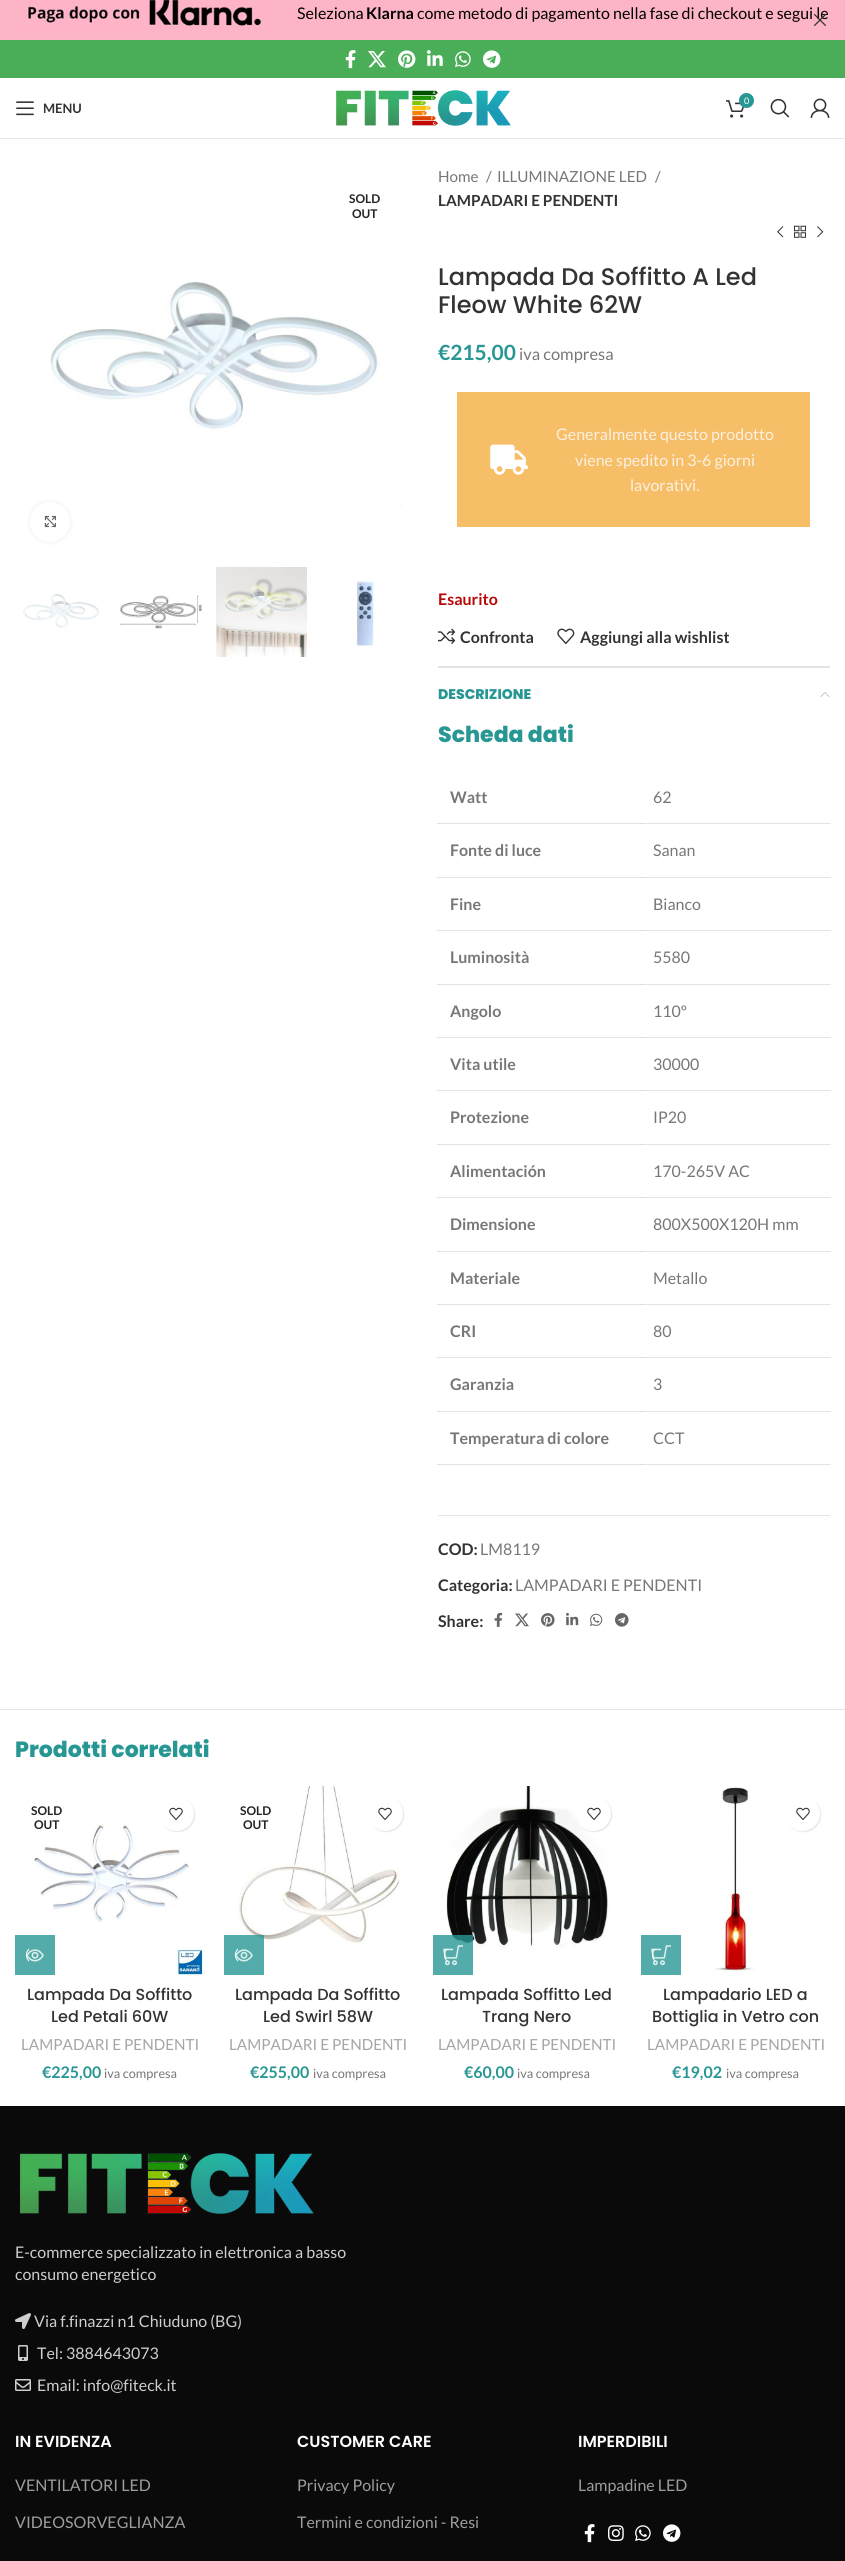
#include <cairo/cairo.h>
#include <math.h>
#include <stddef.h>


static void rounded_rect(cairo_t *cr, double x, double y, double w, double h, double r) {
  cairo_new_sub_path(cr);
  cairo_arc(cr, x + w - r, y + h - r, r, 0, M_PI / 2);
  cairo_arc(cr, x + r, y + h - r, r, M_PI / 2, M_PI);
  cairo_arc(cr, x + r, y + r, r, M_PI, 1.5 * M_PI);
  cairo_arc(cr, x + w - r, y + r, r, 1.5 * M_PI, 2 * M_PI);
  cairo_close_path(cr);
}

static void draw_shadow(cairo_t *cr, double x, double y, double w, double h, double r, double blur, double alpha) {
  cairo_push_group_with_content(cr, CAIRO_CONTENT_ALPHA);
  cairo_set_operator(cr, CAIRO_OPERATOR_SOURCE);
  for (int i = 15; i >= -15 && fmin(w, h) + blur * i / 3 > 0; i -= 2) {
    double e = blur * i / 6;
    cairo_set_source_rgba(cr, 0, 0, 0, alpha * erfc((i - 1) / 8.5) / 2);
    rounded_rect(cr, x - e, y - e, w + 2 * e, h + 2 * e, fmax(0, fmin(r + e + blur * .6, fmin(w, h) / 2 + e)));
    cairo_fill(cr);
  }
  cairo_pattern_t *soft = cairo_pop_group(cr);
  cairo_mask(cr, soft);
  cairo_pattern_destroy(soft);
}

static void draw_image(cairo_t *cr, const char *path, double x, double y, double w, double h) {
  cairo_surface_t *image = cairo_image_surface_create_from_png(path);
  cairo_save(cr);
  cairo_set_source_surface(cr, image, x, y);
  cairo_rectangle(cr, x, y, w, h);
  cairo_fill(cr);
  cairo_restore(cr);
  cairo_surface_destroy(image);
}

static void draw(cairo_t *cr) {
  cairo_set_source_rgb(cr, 1, 1, 1);
  cairo_paint(cr);
  cairo_set_source_rgb(cr, 227 / 255.0, 227 / 255.0, 227 / 255.0);
  cairo_rectangle(cr, 437, 823, 205, 1);
  cairo_fill(cr);
  cairo_rectangle(cr, 437, 877, 205, 1);
  cairo_fill(cr);
  cairo_rectangle(cr, 437, 930, 205, 1);
  cairo_fill(cr);
  cairo_rectangle(cr, 437, 984, 205, 1);
  cairo_fill(cr);
  cairo_rectangle(cr, 437, 1037, 205, 1);
  cairo_fill(cr);
  cairo_rectangle(cr, 437, 1090, 205, 1);
  cairo_fill(cr);
  cairo_rectangle(cr, 437, 1144, 205, 1);
  cairo_fill(cr);
  cairo_rectangle(cr, 437, 1197, 205, 1);
  cairo_fill(cr);
  cairo_rectangle(cr, 437, 1251, 205, 1);
  cairo_fill(cr);
  cairo_rectangle(cr, 437, 1304, 205, 1);
  cairo_fill(cr);
  cairo_rectangle(cr, 437, 1357, 205, 1);
  cairo_fill(cr);
  cairo_rectangle(cr, 437, 1411, 205, 1);
  cairo_fill(cr);
  cairo_rectangle(cr, 437, 1464, 205, 1);
  cairo_fill(cr);
  cairo_set_source_rgb(cr, 253 / 255.0, 180 / 255.0, 199 / 255.0);
  cairo_rectangle(cr, 0, 0, 845, 40);
  cairo_fill(cr);
  draw_image(cr, "images/1.png", 27, 0, 235, 31);
  cairo_set_source_rgb(cr, 74 / 255.0, 173 / 255.0, 88 / 255.0);
  cairo_rectangle(cr, 0, 40, 845, 38);
  cairo_fill(cr);
  draw_image(cr, "images/3.png", 345, 50, 11, 19);
  draw_image(cr, "images/4.png", 368, 51, 18, 17);
  draw_image(cr, "images/5.png", 398, 50, 18, 18);
  draw_image(cr, "images/6.png", 427, 50, 16, 16);
  draw_image(cr, "images/7.png", 455, 51, 16, 16);
  draw_image(cr, "images/8.png", 483, 50, 18, 18);
  cairo_set_source_rgb(cr, 232 / 255.0, 232 / 255.0, 232 / 255.0);
  cairo_rectangle(cr, 0, 138, 845, 1);
  cairo_fill(cr);
  draw_image(cr, "images/9.png", 336, 90, 175, 36);
  draw_image(cr, "images/10.png", 726, 100, 19, 18);
  cairo_set_source_rgb(cr, 40 / 255.0, 151 / 255.0, 148 / 255.0);
  cairo_arc(cr, 746.5, 100.5, 7.5, 0, 2 * M_PI);
  cairo_fill(cr);
  draw_image(cr, "images/11.png", 770, 98, 20, 20);
  draw_image(cr, "images/12.png", 810, 98, 20, 20);
  draw_image(cr, "images/13.png", 16, 101, 18, 15);
  draw_image(cr, "images/14.png", 50, 281, 352, 226);
  cairo_set_source_rgb(cr, 0, 0, 0);
  draw_shadow(cr, 30, 502, 40, 40, 20, 2.5, 0.08);
  cairo_set_source_rgb(cr, 1, 1, 1);
  cairo_arc(cr, 50, 522, 20, 0, 2 * M_PI);
  cairo_fill(cr);
  draw_image(cr, "images/15.png", 44, 515, 12, 13);
  draw_image(cr, "images/16.png", 23, 594, 76, 34);
  draw_image(cr, "images/17.png", 119, 595, 83, 34);
  draw_image(cr, "images/18.png", 216, 567, 91, 90);
  draw_image(cr, "images/19.png", 356, 579, 19, 70);
  draw_image(cr, "images/20.png", 777, 226, 7, 12);
  draw_image(cr, "images/21.png", 794, 225, 12, 13);
  draw_image(cr, "images/22.png", 817, 226, 7, 12);
  cairo_set_source_rgb(cr, 247 / 255.0, 190 / 255.0, 104 / 255.0);
  cairo_rectangle(cr, 457, 392, 353, 135);
  cairo_fill(cr);
  draw_image(cr, "images/23.png", 490, 444, 38, 31);
  draw_image(cr, "images/24.png", 438, 628, 18, 16);
  draw_image(cr, "images/25.png", 557, 628, 18, 16);
  cairo_set_source_rgb(cr, 228 / 255.0, 228 / 255.0, 228 / 255.0);
  cairo_rectangle(cr, 438, 666, 392, 2);
  cairo_fill(cr);
  cairo_rectangle(cr, 438, 1515, 392, 1);
  cairo_fill(cr);
  draw_image(cr, "images/26.png", 820, 692, 10, 5);
  cairo_rectangle(cr, 641, 823, 190, 1);
  cairo_fill(cr);
  cairo_set_source_rgb(cr, 203 / 255.0, 203 / 255.0, 203 / 255.0);
  cairo_rectangle(cr, 641, 823, 1, 1);
  cairo_fill(cr);
  cairo_set_source_rgb(cr, 228 / 255.0, 228 / 255.0, 228 / 255.0);
  cairo_rectangle(cr, 641, 877, 190, 1);
  cairo_fill(cr);
  cairo_set_source_rgb(cr, 203 / 255.0, 203 / 255.0, 203 / 255.0);
  cairo_rectangle(cr, 641, 877, 1, 1);
  cairo_fill(cr);
  cairo_set_source_rgb(cr, 228 / 255.0, 228 / 255.0, 228 / 255.0);
  cairo_rectangle(cr, 641, 930, 190, 1);
  cairo_fill(cr);
  cairo_set_source_rgb(cr, 203 / 255.0, 203 / 255.0, 203 / 255.0);
  cairo_rectangle(cr, 641, 930, 1, 1);
  cairo_fill(cr);
  cairo_set_source_rgb(cr, 228 / 255.0, 228 / 255.0, 228 / 255.0);
  cairo_rectangle(cr, 641, 984, 190, 1);
  cairo_fill(cr);
  cairo_set_source_rgb(cr, 203 / 255.0, 203 / 255.0, 203 / 255.0);
  cairo_rectangle(cr, 641, 984, 1, 1);
  cairo_fill(cr);
  cairo_set_source_rgb(cr, 228 / 255.0, 228 / 255.0, 228 / 255.0);
  cairo_rectangle(cr, 641, 1037, 190, 1);
  cairo_fill(cr);
  cairo_set_source_rgb(cr, 203 / 255.0, 203 / 255.0, 203 / 255.0);
  cairo_rectangle(cr, 641, 1037, 1, 1);
  cairo_fill(cr);
  cairo_set_source_rgb(cr, 228 / 255.0, 228 / 255.0, 228 / 255.0);
  cairo_rectangle(cr, 641, 1090, 190, 1);
  cairo_fill(cr);
  cairo_set_source_rgb(cr, 203 / 255.0, 203 / 255.0, 203 / 255.0);
  cairo_rectangle(cr, 641, 1090, 1, 1);
  cairo_fill(cr);
  cairo_set_source_rgb(cr, 228 / 255.0, 228 / 255.0, 228 / 255.0);
  cairo_rectangle(cr, 641, 1144, 190, 1);
  cairo_fill(cr);
  cairo_set_source_rgb(cr, 203 / 255.0, 203 / 255.0, 203 / 255.0);
  cairo_rectangle(cr, 641, 1144, 1, 1);
  cairo_fill(cr);
  cairo_set_source_rgb(cr, 228 / 255.0, 228 / 255.0, 228 / 255.0);
  cairo_rectangle(cr, 641, 1197, 190, 1);
  cairo_fill(cr);
  cairo_set_source_rgb(cr, 203 / 255.0, 203 / 255.0, 203 / 255.0);
  cairo_rectangle(cr, 641, 1197, 1, 1);
  cairo_fill(cr);
  cairo_set_source_rgb(cr, 228 / 255.0, 228 / 255.0, 228 / 255.0);
  cairo_rectangle(cr, 641, 1251, 190, 1);
  cairo_fill(cr);
  cairo_set_source_rgb(cr, 203 / 255.0, 203 / 255.0, 203 / 255.0);
  cairo_rectangle(cr, 641, 1251, 1, 1);
  cairo_fill(cr);
  cairo_set_source_rgb(cr, 228 / 255.0, 228 / 255.0, 228 / 255.0);
  cairo_rectangle(cr, 641, 1304, 190, 1);
  cairo_fill(cr);
  cairo_set_source_rgb(cr, 203 / 255.0, 203 / 255.0, 203 / 255.0);
  cairo_rectangle(cr, 641, 1304, 1, 1);
  cairo_fill(cr);
  cairo_set_source_rgb(cr, 228 / 255.0, 228 / 255.0, 228 / 255.0);
  cairo_rectangle(cr, 641, 1357, 190, 1);
  cairo_fill(cr);
  cairo_set_source_rgb(cr, 203 / 255.0, 203 / 255.0, 203 / 255.0);
  cairo_rectangle(cr, 641, 1357, 1, 1);
  cairo_fill(cr);
  cairo_set_source_rgb(cr, 228 / 255.0, 228 / 255.0, 228 / 255.0);
  cairo_rectangle(cr, 641, 1411, 190, 1);
  cairo_fill(cr);
  cairo_set_source_rgb(cr, 203 / 255.0, 203 / 255.0, 203 / 255.0);
  cairo_rectangle(cr, 641, 1411, 1, 1);
  cairo_fill(cr);
  cairo_set_source_rgb(cr, 228 / 255.0, 228 / 255.0, 228 / 255.0);
  cairo_rectangle(cr, 641, 1464, 190, 1);
  cairo_fill(cr);
  cairo_set_source_rgb(cr, 203 / 255.0, 203 / 255.0, 203 / 255.0);
  cairo_rectangle(cr, 641, 1464, 1, 1);
  cairo_fill(cr);
  draw_image(cr, "images/27.png", 494, 1612, 9, 15);
  draw_image(cr, "images/28.png", 515, 1613, 14, 14);
  draw_image(cr, "images/29.png", 541, 1613, 14, 14);
  draw_image(cr, "images/30.png", 566, 1612, 13, 14);
  draw_image(cr, "images/31.png", 590, 1613, 13, 13);
  draw_image(cr, "images/32.png", 615, 1613, 14, 14);
  cairo_set_source_rgb(cr, 228 / 255.0, 228 / 255.0, 228 / 255.0);
  cairo_rectangle(cr, 0, 1709, 845, 1);
  cairo_fill(cr);
  draw_image(cr, "images/33.png", 34, 1824, 170, 151);
  cairo_set_source_rgb(cr, 0, 0, 0);
  draw_shadow(cr, 160, 1797, 35, 35, 17.5, 0.5, 0.1);
  cairo_set_source_rgb(cr, 1, 1, 1);
  cairo_arc(cr, 176.5, 1813.5, 17.5, 0, 2 * M_PI);
  cairo_fill(cr);
  draw_image(cr, "images/34.png", 169, 1807, 14, 13);
  cairo_set_source_rgb(cr, 83 / 255.0, 172 / 255.0, 169 / 255.0);
  cairo_rectangle(cr, 15, 1935, 40, 40);
  cairo_fill(cr);
  draw_image(cr, "images/35.png", 26, 1949, 18, 13);
  cairo_new_path(cr);
  cairo_move_to(cr, 29, 1961);
  cairo_curve_to(cr, 25.5, 1957.5, 25.5, 1952.5, 29, 1949);
  cairo_set_source_rgb(cr, 1, 1, 1);
  cairo_set_line_width(cr, 1);
  cairo_stroke(cr);
  draw_image(cr, "images/36.png", 238, 1786, 162, 158);
  cairo_set_source_rgb(cr, 0, 0, 0);
  draw_shadow(cr, 369, 1797, 35, 35, 17.5, 0.5, 0.1);
  cairo_set_source_rgb(cr, 1, 1, 1);
  cairo_arc(cr, 385.5, 1813.5, 17.5, 0, 2 * M_PI);
  cairo_fill(cr);
  draw_image(cr, "images/34.png", 378, 1807, 14, 13);
  cairo_set_source_rgba(cr, 40 / 255.0, 151 / 255.0, 148 / 255.0, 0.8);
  cairo_rectangle(cr, 224, 1935, 40, 40);
  cairo_fill(cr);
  draw_image(cr, "images/37.png", 235, 1949, 18, 13);
  cairo_new_path(cr);
  cairo_move_to(cr, 238, 1961);
  cairo_curve_to(cr, 234.5, 1957.5, 234.5, 1952.5, 238, 1949);
  cairo_set_source_rgb(cr, 1, 1, 1);
  cairo_stroke(cr);
  draw_image(cr, "images/38.png", 445, 1786, 164, 163);
  cairo_set_source_rgb(cr, 0, 0, 0);
  draw_shadow(cr, 577, 1797, 35, 35, 17.5, 0.5, 0.1);
  cairo_set_source_rgb(cr, 1, 1, 1);
  cairo_arc(cr, 593.5, 1813.5, 17.5, 0, 2 * M_PI);
  cairo_fill(cr);
  draw_image(cr, "images/34.png", 587, 1807, 14, 13);
  cairo_set_source_rgba(cr, 40 / 255.0, 151 / 255.0, 148 / 255.0, 0.8);
  cairo_rectangle(cr, 433, 1935, 40, 40);
  cairo_fill(cr);
  draw_image(cr, "images/39.png", 443, 1945, 20, 21);
  cairo_new_path(cr);
  cairo_move_to(cr, 447, 1961);
  cairo_curve_to(cr, 443.5, 1957.5, 443.5, 1952.5, 447, 1949);
  cairo_set_source_rgb(cr, 1, 1, 1);
  cairo_stroke(cr);
  draw_image(cr, "images/40.png", 714, 1787, 40, 185);
  cairo_set_source_rgb(cr, 0, 0, 0);
  draw_shadow(cr, 786, 1797, 35, 35, 17.5, 0.5, 0.1);
  cairo_set_source_rgb(cr, 1, 1, 1);
  cairo_arc(cr, 802.5, 1813.5, 17.5, 0, 2 * M_PI);
  cairo_fill(cr);
  draw_image(cr, "images/34.png", 796, 1807, 14, 13);
  cairo_set_source_rgb(cr, 83 / 255.0, 172 / 255.0, 169 / 255.0);
  cairo_rectangle(cr, 641, 1935, 40, 40);
  cairo_fill(cr);
  draw_image(cr, "images/41.png", 651, 1945, 20, 21);
  cairo_new_path(cr);
  cairo_move_to(cr, 655, 1961);
  cairo_curve_to(cr, 651.5, 1957.5, 651.5, 1952.5, 655, 1949);
  cairo_set_source_rgb(cr, 1, 1, 1);
  cairo_stroke(cr);
  cairo_set_source_rgb(cr, 10 / 255.0, 10 / 255.0, 10 / 255.0);
  cairo_rectangle(cr, 0, 2106, 845, 455);
  cairo_fill(cr);
  draw_image(cr, "images/42.png", 20, 2153, 294, 61);
  draw_image(cr, "images/43.png", 15, 2313, 16, 16);
  draw_image(cr, "images/44.png", 18, 2345, 10, 16);
  draw_image(cr, "images/45.png", 15, 2379, 16, 12);
  draw_image(cr, "images/46.png", 584, 2524, 11, 19);
  draw_image(cr, "images/47.png", 608, 2525, 16, 16);
  draw_image(cr, "images/48.png", 635, 2525, 16, 16);
  draw_image(cr, "images/49.png", 663, 2524, 18, 18);
  cairo_select_font_face(cr, "Lato", CAIRO_FONT_SLANT_NORMAL, CAIRO_FONT_WEIGHT_NORMAL);
  cairo_set_font_size(cr, 16);
  cairo_set_source_rgb(cr, 0, 0, 0);
  cairo_move_to(cr, 297, 19);
  cairo_show_text(cr, "Seleziona");
  cairo_select_font_face(cr, "Lato", CAIRO_FONT_SLANT_NORMAL, CAIRO_FONT_WEIGHT_BOLD);
  cairo_move_to(cr, 366, 19);
  cairo_show_text(cr, "Klarna");
  cairo_select_font_face(cr, "Lato", CAIRO_FONT_SLANT_NORMAL, CAIRO_FONT_WEIGHT_NORMAL);
  cairo_move_to(cr, 417, 19);
  cairo_show_text(cr, "come metodo di pagamento nella fase di checkout e segui le");
  draw_image(cr, "images/2.png", 813, 13, 14, 14);
  cairo_set_font_size(cr, 9);
  cairo_set_source_rgb(cr, 1, 1, 1);
  cairo_move_to(cr, 744, 104);
  cairo_show_text(cr, "0");
  cairo_select_font_face(cr, "Lato", CAIRO_FONT_SLANT_NORMAL, CAIRO_FONT_WEIGHT_BOLD);
  cairo_set_font_size(cr, 13);
  cairo_set_source_rgb(cr, 51 / 255.0, 51 / 255.0, 51 / 255.0);
  cairo_move_to(cr, 43, 113);
  cairo_show_text(cr, "MENU");
  cairo_set_font_size(cr, 12);
  cairo_set_source_rgb(cr, 36 / 255.0, 36 / 255.0, 36 / 255.0);
  cairo_move_to(cr, 349, 203);
  cairo_show_text(cr, "SOLD");
  cairo_move_to(cr, 352, 218);
  cairo_show_text(cr, "OUT");
  cairo_select_font_face(cr, "Lato", CAIRO_FONT_SLANT_NORMAL, CAIRO_FONT_WEIGHT_NORMAL);
  cairo_set_font_size(cr, 15.25);
  cairo_set_source_rgb(cr, 119 / 255.0, 119 / 255.0, 119 / 255.0);
  cairo_move_to(cr, 438, 182);
  cairo_show_text(cr, "Home");
  cairo_move_to(cr, 486, 182);
  cairo_show_text(cr, "/");
  cairo_move_to(cr, 497, 182);
  cairo_show_text(cr, "ILLUMINAZIONE LED");
  cairo_move_to(cr, 655, 182);
  cairo_show_text(cr, "/");
  cairo_select_font_face(cr, "Lato", CAIRO_FONT_SLANT_NORMAL, CAIRO_FONT_WEIGHT_BOLD);
  cairo_set_source_rgb(cr, 51 / 255.0, 51 / 255.0, 51 / 255.0);
  cairo_move_to(cr, 438, 206);
  cairo_show_text(cr, "LAMPADARI E PENDENTI");
  cairo_select_font_face(cr, "Poppins Medium", CAIRO_FONT_SLANT_NORMAL, CAIRO_FONT_WEIGHT_NORMAL);
  cairo_set_font_size(cr, 24);
  cairo_move_to(cr, 438, 285);
  cairo_show_text(cr, "Lampada Da Soffitto A Led");
  cairo_move_to(cr, 438, 313);
  cairo_show_text(cr, "Fleow White 62W");
  cairo_select_font_face(cr, "Lato", CAIRO_FONT_SLANT_NORMAL, CAIRO_FONT_WEIGHT_BOLD);
  cairo_set_font_size(cr, 21);
  cairo_set_source_rgb(cr, 40 / 255.0, 151 / 255.0, 148 / 255.0);
  cairo_move_to(cr, 438, 360);
  cairo_show_text(cr, "€215,00");
  cairo_select_font_face(cr, "Lato", CAIRO_FONT_SLANT_NORMAL, CAIRO_FONT_WEIGHT_NORMAL);
  cairo_set_font_size(cr, 16.5);
  cairo_set_source_rgb(cr, 119 / 255.0, 119 / 255.0, 119 / 255.0);
  cairo_move_to(cr, 519, 360);
  cairo_show_text(cr, "iva compresa");
  cairo_set_font_size(cr, 16);
  cairo_set_source_rgb(cr, 250 / 255.0, 240 / 255.0, 225 / 255.0);
  cairo_move_to(cr, 556, 440);
  cairo_show_text(cr, "Generalmente questo prodotto");
  cairo_move_to(cr, 575, 466);
  cairo_show_text(cr, "viene spedito in 3-6 giorni");
  cairo_move_to(cr, 630, 491);
  cairo_show_text(cr, "lavorativi.");
  cairo_select_font_face(cr, "Lato", CAIRO_FONT_SLANT_NORMAL, CAIRO_FONT_WEIGHT_BOLD);
  cairo_set_source_rgb(cr, 181 / 255.0, 8 / 255.0, 8 / 255.0);
  cairo_move_to(cr, 438, 605);
  cairo_show_text(cr, "Esaurito");
  cairo_set_source_rgb(cr, 51 / 255.0, 51 / 255.0, 51 / 255.0);
  cairo_move_to(cr, 460, 643);
  cairo_show_text(cr, "Confronta");
  cairo_move_to(cr, 580, 643);
  cairo_show_text(cr, "Aggiungi alla wishlist");
  cairo_select_font_face(cr, "Poppins ExtraBold", CAIRO_FONT_SLANT_NORMAL, CAIRO_FONT_WEIGHT_NORMAL);
  cairo_set_font_size(cr, 14);
  cairo_set_source_rgb(cr, 40 / 255.0, 151 / 255.0, 148 / 255.0);
  cairo_move_to(cr, 438, 699);
  cairo_show_text(cr, "DESCRIZIONE");
  cairo_set_font_size(cr, 22);
  cairo_move_to(cr, 438, 742);
  cairo_show_text(cr, "Scheda dati");
  cairo_select_font_face(cr, "Lato", CAIRO_FONT_SLANT_NORMAL, CAIRO_FONT_WEIGHT_BOLD);
  cairo_set_font_size(cr, 16);
  cairo_set_source_rgb(cr, 119 / 255.0, 119 / 255.0, 119 / 255.0);
  cairo_move_to(cr, 450, 803);
  cairo_show_text(cr, "Watt");
  cairo_select_font_face(cr, "Lato", CAIRO_FONT_SLANT_NORMAL, CAIRO_FONT_WEIGHT_NORMAL);
  cairo_move_to(cr, 653, 803);
  cairo_show_text(cr, "62");
  cairo_select_font_face(cr, "Lato", CAIRO_FONT_SLANT_NORMAL, CAIRO_FONT_WEIGHT_BOLD);
  cairo_move_to(cr, 450, 856);
  cairo_show_text(cr, "Fonte di luce");
  cairo_select_font_face(cr, "Lato", CAIRO_FONT_SLANT_NORMAL, CAIRO_FONT_WEIGHT_NORMAL);
  cairo_move_to(cr, 653, 856);
  cairo_show_text(cr, "Sanan");
  cairo_select_font_face(cr, "Lato", CAIRO_FONT_SLANT_NORMAL, CAIRO_FONT_WEIGHT_BOLD);
  cairo_move_to(cr, 450, 910);
  cairo_show_text(cr, "Fine");
  cairo_select_font_face(cr, "Lato", CAIRO_FONT_SLANT_NORMAL, CAIRO_FONT_WEIGHT_NORMAL);
  cairo_move_to(cr, 653, 910);
  cairo_show_text(cr, "Bianco");
  cairo_select_font_face(cr, "Lato", CAIRO_FONT_SLANT_NORMAL, CAIRO_FONT_WEIGHT_BOLD);
  cairo_move_to(cr, 450, 963);
  cairo_show_text(cr, "Luminosità");
  cairo_select_font_face(cr, "Lato", CAIRO_FONT_SLANT_NORMAL, CAIRO_FONT_WEIGHT_NORMAL);
  cairo_move_to(cr, 653, 963);
  cairo_show_text(cr, "5580");
  cairo_select_font_face(cr, "Lato", CAIRO_FONT_SLANT_NORMAL, CAIRO_FONT_WEIGHT_BOLD);
  cairo_move_to(cr, 450, 1017);
  cairo_show_text(cr, "Angolo");
  cairo_select_font_face(cr, "Lato", CAIRO_FONT_SLANT_NORMAL, CAIRO_FONT_WEIGHT_NORMAL);
  cairo_move_to(cr, 653, 1017);
  cairo_show_text(cr, "110º");
  cairo_select_font_face(cr, "Lato", CAIRO_FONT_SLANT_NORMAL, CAIRO_FONT_WEIGHT_BOLD);
  cairo_move_to(cr, 450, 1070);
  cairo_show_text(cr, "Vita utile");
  cairo_select_font_face(cr, "Lato", CAIRO_FONT_SLANT_NORMAL, CAIRO_FONT_WEIGHT_NORMAL);
  cairo_move_to(cr, 653, 1070);
  cairo_show_text(cr, "30000");
  cairo_select_font_face(cr, "Lato", CAIRO_FONT_SLANT_NORMAL, CAIRO_FONT_WEIGHT_BOLD);
  cairo_move_to(cr, 450, 1123);
  cairo_show_text(cr, "Protezione");
  cairo_select_font_face(cr, "Lato", CAIRO_FONT_SLANT_NORMAL, CAIRO_FONT_WEIGHT_NORMAL);
  cairo_move_to(cr, 653, 1123);
  cairo_show_text(cr, "IP20");
  cairo_select_font_face(cr, "Lato", CAIRO_FONT_SLANT_NORMAL, CAIRO_FONT_WEIGHT_BOLD);
  cairo_move_to(cr, 450, 1177);
  cairo_show_text(cr, "Alimentación");
  cairo_select_font_face(cr, "Lato", CAIRO_FONT_SLANT_NORMAL, CAIRO_FONT_WEIGHT_NORMAL);
  cairo_move_to(cr, 653, 1177);
  cairo_show_text(cr, "170-265V AC");
  cairo_select_font_face(cr, "Lato", CAIRO_FONT_SLANT_NORMAL, CAIRO_FONT_WEIGHT_BOLD);
  cairo_move_to(cr, 450, 1230);
  cairo_show_text(cr, "Dimensione");
  cairo_select_font_face(cr, "Lato", CAIRO_FONT_SLANT_NORMAL, CAIRO_FONT_WEIGHT_NORMAL);
  cairo_move_to(cr, 653, 1230);
  cairo_show_text(cr, "800X500X120H mm");
  cairo_select_font_face(cr, "Lato", CAIRO_FONT_SLANT_NORMAL, CAIRO_FONT_WEIGHT_BOLD);
  cairo_move_to(cr, 450, 1284);
  cairo_show_text(cr, "Materiale");
  cairo_select_font_face(cr, "Lato", CAIRO_FONT_SLANT_NORMAL, CAIRO_FONT_WEIGHT_NORMAL);
  cairo_move_to(cr, 653, 1284);
  cairo_show_text(cr, "Metallo");
  cairo_select_font_face(cr, "Lato", CAIRO_FONT_SLANT_NORMAL, CAIRO_FONT_WEIGHT_BOLD);
  cairo_move_to(cr, 450, 1337);
  cairo_show_text(cr, "CRI");
  cairo_select_font_face(cr, "Lato", CAIRO_FONT_SLANT_NORMAL, CAIRO_FONT_WEIGHT_NORMAL);
  cairo_move_to(cr, 653, 1337);
  cairo_show_text(cr, "80");
  cairo_select_font_face(cr, "Lato", CAIRO_FONT_SLANT_NORMAL, CAIRO_FONT_WEIGHT_BOLD);
  cairo_move_to(cr, 450, 1390);
  cairo_show_text(cr, "Garanzia");
  cairo_select_font_face(cr, "Lato", CAIRO_FONT_SLANT_NORMAL, CAIRO_FONT_WEIGHT_NORMAL);
  cairo_move_to(cr, 653, 1390);
  cairo_show_text(cr, "3");
  cairo_select_font_face(cr, "Lato", CAIRO_FONT_SLANT_NORMAL, CAIRO_FONT_WEIGHT_BOLD);
  cairo_move_to(cr, 450, 1444);
  cairo_show_text(cr, "Temperatura di colore");
  cairo_select_font_face(cr, "Lato", CAIRO_FONT_SLANT_NORMAL, CAIRO_FONT_WEIGHT_NORMAL);
  cairo_move_to(cr, 653, 1444);
  cairo_show_text(cr, "CCT");
  cairo_select_font_face(cr, "Lato", CAIRO_FONT_SLANT_NORMAL, CAIRO_FONT_WEIGHT_BOLD);
  cairo_set_source_rgb(cr, 51 / 255.0, 51 / 255.0, 51 / 255.0);
  cairo_move_to(cr, 438, 1555);
  cairo_show_text(cr, "COD:");
  cairo_select_font_face(cr, "Lato", CAIRO_FONT_SLANT_NORMAL, CAIRO_FONT_WEIGHT_NORMAL);
  cairo_set_source_rgb(cr, 119 / 255.0, 119 / 255.0, 119 / 255.0);
  cairo_move_to(cr, 480, 1555);
  cairo_show_text(cr, "LM8119");
  cairo_select_font_face(cr, "Lato", CAIRO_FONT_SLANT_NORMAL, CAIRO_FONT_WEIGHT_BOLD);
  cairo_set_source_rgb(cr, 51 / 255.0, 51 / 255.0, 51 / 255.0);
  cairo_move_to(cr, 438, 1591);
  cairo_show_text(cr, "Categoria:");
  cairo_select_font_face(cr, "Lato", CAIRO_FONT_SLANT_NORMAL, CAIRO_FONT_WEIGHT_NORMAL);
  cairo_set_source_rgb(cr, 119 / 255.0, 119 / 255.0, 119 / 255.0);
  cairo_move_to(cr, 515, 1591);
  cairo_show_text(cr, "LAMPADARI E PENDENTI");
  cairo_select_font_face(cr, "Lato", CAIRO_FONT_SLANT_NORMAL, CAIRO_FONT_WEIGHT_BOLD);
  cairo_set_source_rgb(cr, 51 / 255.0, 51 / 255.0, 51 / 255.0);
  cairo_move_to(cr, 438, 1627);
  cairo_show_text(cr, "Share:");
  cairo_select_font_face(cr, "Poppins ExtraBold", CAIRO_FONT_SLANT_NORMAL, CAIRO_FONT_WEIGHT_NORMAL);
  cairo_set_font_size(cr, 22);
  cairo_set_source_rgb(cr, 40 / 255.0, 151 / 255.0, 148 / 255.0);
  cairo_move_to(cr, 15, 1757);
  cairo_show_text(cr, "Prodotti correlati");
  cairo_select_font_face(cr, "Lato", CAIRO_FONT_SLANT_NORMAL, CAIRO_FONT_WEIGHT_BOLD);
  cairo_set_font_size(cr, 12);
  cairo_set_source_rgb(cr, 36 / 255.0, 36 / 255.0, 36 / 255.0);
  cairo_move_to(cr, 31, 1815);
  cairo_show_text(cr, "SOLD");
  cairo_move_to(cr, 34, 1829);
  cairo_show_text(cr, "OUT");
  cairo_select_font_face(cr, "Poppins Medium", CAIRO_FONT_SLANT_NORMAL, CAIRO_FONT_WEIGHT_NORMAL);
  cairo_set_font_size(cr, 16);
  cairo_set_source_rgb(cr, 51 / 255.0, 51 / 255.0, 51 / 255.0);
  cairo_move_to(cr, 27, 2000);
  cairo_show_text(cr, "Lampada Da Soffitto");
  cairo_move_to(cr, 51, 2022);
  cairo_show_text(cr, "Led Petali 60W");
  cairo_select_font_face(cr, "Lato", CAIRO_FONT_SLANT_NORMAL, CAIRO_FONT_WEIGHT_NORMAL);
  cairo_set_font_size(cr, 15.25);
  cairo_set_source_rgb(cr, 165 / 255.0, 165 / 255.0, 165 / 255.0);
  cairo_move_to(cr, 21, 2050);
  cairo_show_text(cr, "LAMPADARI E PENDENTI");
  cairo_select_font_face(cr, "Lato", CAIRO_FONT_SLANT_NORMAL, CAIRO_FONT_WEIGHT_BOLD);
  cairo_set_font_size(cr, 16);
  cairo_set_source_rgb(cr, 40 / 255.0, 151 / 255.0, 148 / 255.0);
  cairo_move_to(cr, 42, 2078);
  cairo_show_text(cr, "€225,00");
  cairo_select_font_face(cr, "Lato", CAIRO_FONT_SLANT_NORMAL, CAIRO_FONT_WEIGHT_NORMAL);
  cairo_set_font_size(cr, 12.75);
  cairo_set_source_rgb(cr, 119 / 255.0, 119 / 255.0, 119 / 255.0);
  cairo_move_to(cr, 104, 2078);
  cairo_show_text(cr, "iva compresa");
  cairo_select_font_face(cr, "Lato", CAIRO_FONT_SLANT_NORMAL, CAIRO_FONT_WEIGHT_BOLD);
  cairo_set_font_size(cr, 12);
  cairo_set_source_rgb(cr, 36 / 255.0, 36 / 255.0, 36 / 255.0);
  cairo_move_to(cr, 240, 1815);
  cairo_show_text(cr, "SOLD");
  cairo_move_to(cr, 243, 1829);
  cairo_show_text(cr, "OUT");
  cairo_select_font_face(cr, "Poppins Medium", CAIRO_FONT_SLANT_NORMAL, CAIRO_FONT_WEIGHT_NORMAL);
  cairo_set_font_size(cr, 16);
  cairo_set_source_rgb(cr, 51 / 255.0, 51 / 255.0, 51 / 255.0);
  cairo_move_to(cr, 235, 2000);
  cairo_show_text(cr, "Lampada Da Soffitto");
  cairo_move_to(cr, 263, 2022);
  cairo_show_text(cr, "Led Swirl 58W");
  cairo_select_font_face(cr, "Lato", CAIRO_FONT_SLANT_NORMAL, CAIRO_FONT_WEIGHT_NORMAL);
  cairo_set_font_size(cr, 15.25);
  cairo_set_source_rgb(cr, 165 / 255.0, 165 / 255.0, 165 / 255.0);
  cairo_move_to(cr, 229, 2050);
  cairo_show_text(cr, "LAMPADARI E PENDENTI");
  cairo_select_font_face(cr, "Lato", CAIRO_FONT_SLANT_NORMAL, CAIRO_FONT_WEIGHT_BOLD);
  cairo_set_font_size(cr, 16);
  cairo_set_source_rgb(cr, 40 / 255.0, 151 / 255.0, 148 / 255.0);
  cairo_move_to(cr, 250, 2078);
  cairo_show_text(cr, "€255,00");
  cairo_select_font_face(cr, "Lato", CAIRO_FONT_SLANT_NORMAL, CAIRO_FONT_WEIGHT_NORMAL);
  cairo_set_font_size(cr, 12.75);
  cairo_set_source_rgb(cr, 119 / 255.0, 119 / 255.0, 119 / 255.0);
  cairo_move_to(cr, 313, 2078);
  cairo_show_text(cr, "iva compresa");
  cairo_select_font_face(cr, "Poppins Medium", CAIRO_FONT_SLANT_NORMAL, CAIRO_FONT_WEIGHT_NORMAL);
  cairo_set_font_size(cr, 16);
  cairo_set_source_rgb(cr, 51 / 255.0, 51 / 255.0, 51 / 255.0);
  cairo_move_to(cr, 441, 2000);
  cairo_show_text(cr, "Lampada Soffitto Led");
  cairo_move_to(cr, 482, 2022);
  cairo_show_text(cr, "Trang Nero");
  cairo_select_font_face(cr, "Lato", CAIRO_FONT_SLANT_NORMAL, CAIRO_FONT_WEIGHT_NORMAL);
  cairo_set_font_size(cr, 15.25);
  cairo_set_source_rgb(cr, 165 / 255.0, 165 / 255.0, 165 / 255.0);
  cairo_move_to(cr, 438, 2050);
  cairo_show_text(cr, "LAMPADARI E PENDENTI");
  cairo_select_font_face(cr, "Lato", CAIRO_FONT_SLANT_NORMAL, CAIRO_FONT_WEIGHT_BOLD);
  cairo_set_font_size(cr, 16);
  cairo_set_source_rgb(cr, 40 / 255.0, 151 / 255.0, 148 / 255.0);
  cairo_move_to(cr, 464, 2078);
  cairo_show_text(cr, "€60,00");
  cairo_select_font_face(cr, "Lato", CAIRO_FONT_SLANT_NORMAL, CAIRO_FONT_WEIGHT_NORMAL);
  cairo_set_font_size(cr, 12.75);
  cairo_set_source_rgb(cr, 119 / 255.0, 119 / 255.0, 119 / 255.0);
  cairo_move_to(cr, 517, 2078);
  cairo_show_text(cr, "iva compresa");
  cairo_select_font_face(cr, "Poppins Medium", CAIRO_FONT_SLANT_NORMAL, CAIRO_FONT_WEIGHT_NORMAL);
  cairo_set_font_size(cr, 16);
  cairo_set_source_rgb(cr, 51 / 255.0, 51 / 255.0, 51 / 255.0);
  cairo_move_to(cr, 663, 2000);
  cairo_show_text(cr, "Lampadario LED a");
  cairo_move_to(cr, 652, 2022);
  cairo_show_text(cr, "Bottiglia in Vetro con");
  cairo_select_font_face(cr, "Lato", CAIRO_FONT_SLANT_NORMAL, CAIRO_FONT_WEIGHT_NORMAL);
  cairo_set_font_size(cr, 15.25);
  cairo_set_source_rgb(cr, 165 / 255.0, 165 / 255.0, 165 / 255.0);
  cairo_move_to(cr, 647, 2050);
  cairo_show_text(cr, "LAMPADARI E PENDENTI");
  cairo_select_font_face(cr, "Lato", CAIRO_FONT_SLANT_NORMAL, CAIRO_FONT_WEIGHT_BOLD);
  cairo_set_font_size(cr, 16);
  cairo_set_source_rgb(cr, 40 / 255.0, 151 / 255.0, 148 / 255.0);
  cairo_move_to(cr, 672, 2078);
  cairo_show_text(cr, "€19,02");
  cairo_select_font_face(cr, "Lato", CAIRO_FONT_SLANT_NORMAL, CAIRO_FONT_WEIGHT_NORMAL);
  cairo_set_font_size(cr, 12.75);
  cairo_set_source_rgb(cr, 119 / 255.0, 119 / 255.0, 119 / 255.0);
  cairo_move_to(cr, 726, 2078);
  cairo_show_text(cr, "iva compresa");
  cairo_set_font_size(cr, 16);
  cairo_set_source_rgb(cr, 206 / 255.0, 206 / 255.0, 206 / 255.0);
  cairo_move_to(cr, 15, 2258);
  cairo_show_text(cr, "E-commerce specializzato in elettronica a basso");
  cairo_move_to(cr, 15, 2280);
  cairo_show_text(cr, "consumo energetico");
  cairo_move_to(cr, 34, 2327);
  cairo_show_text(cr, "Via f.finazzi n1 Chiuduno (BG)");
  cairo_move_to(cr, 37, 2359);
  cairo_show_text(cr, "Tel: 3884643073");
  cairo_move_to(cr, 37, 2391);
  cairo_show_text(cr, "Email: info@fiteck.it");
  cairo_select_font_face(cr, "Poppins SemiBold", CAIRO_FONT_SLANT_NORMAL, CAIRO_FONT_WEIGHT_NORMAL);
  cairo_set_source_rgb(cr, 1, 1, 1);
  cairo_move_to(cr, 15, 2447);
  cairo_show_text(cr, "IN EVIDENZA");
  cairo_select_font_face(cr, "Lato", CAIRO_FONT_SLANT_NORMAL, CAIRO_FONT_WEIGHT_NORMAL);
  cairo_set_source_rgb(cr, 157 / 255.0, 157 / 255.0, 157 / 255.0);
  cairo_move_to(cr, 15, 2491);
  cairo_show_text(cr, "VENTILATORI LED");
  cairo_move_to(cr, 15, 2528);
  cairo_show_text(cr, "VIDEOSORVEGLIANZA");
  cairo_select_font_face(cr, "Poppins SemiBold", CAIRO_FONT_SLANT_NORMAL, CAIRO_FONT_WEIGHT_NORMAL);
  cairo_set_source_rgb(cr, 1, 1, 1);
  cairo_move_to(cr, 297, 2447);
  cairo_show_text(cr, "CUSTOMER CARE");
  cairo_select_font_face(cr, "Lato", CAIRO_FONT_SLANT_NORMAL, CAIRO_FONT_WEIGHT_NORMAL);
  cairo_set_source_rgb(cr, 157 / 255.0, 157 / 255.0, 157 / 255.0);
  cairo_move_to(cr, 297, 2491);
  cairo_show_text(cr, "Privacy Policy");
  cairo_move_to(cr, 297, 2528);
  cairo_show_text(cr, "Termini e condizioni - Resi");
  cairo_select_font_face(cr, "Poppins SemiBold", CAIRO_FONT_SLANT_NORMAL, CAIRO_FONT_WEIGHT_NORMAL);
  cairo_set_source_rgb(cr, 1, 1, 1);
  cairo_move_to(cr, 578, 2447);
  cairo_show_text(cr, "IMPERDIBILI");
  cairo_select_font_face(cr, "Lato", CAIRO_FONT_SLANT_NORMAL, CAIRO_FONT_WEIGHT_NORMAL);
  cairo_set_source_rgb(cr, 157 / 255.0, 157 / 255.0, 157 / 255.0);
  cairo_move_to(cr, 578, 2491);
  cairo_show_text(cr, "Lampadine LED");
}

int main(void) {
  cairo_surface_t *surface = cairo_image_surface_create(CAIRO_FORMAT_RGB24, 845, 2561);
  cairo_t *cr = cairo_create(surface);
  cairo_font_options_t *options = cairo_font_options_create();
  cairo_font_options_set_hint_metrics(options, CAIRO_HINT_METRICS_OFF);
  cairo_font_options_set_hint_style(options, CAIRO_HINT_STYLE_NONE);
  cairo_set_font_options(cr, options);
  cairo_set_miter_limit(cr, 4);
  draw(cr);
  cairo_surface_write_to_png(surface, "out.png");
  cairo_font_options_destroy(options);
  cairo_destroy(cr);
  cairo_surface_destroy(surface);
  return 0;
}
